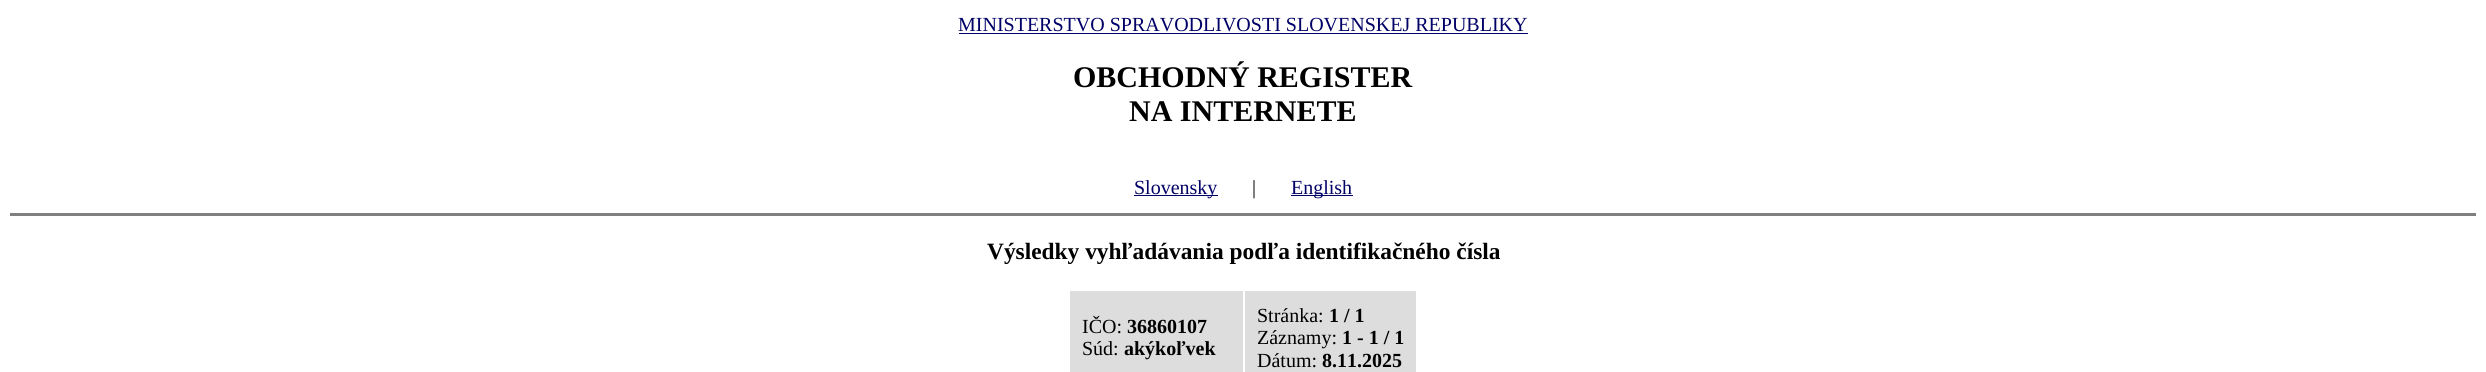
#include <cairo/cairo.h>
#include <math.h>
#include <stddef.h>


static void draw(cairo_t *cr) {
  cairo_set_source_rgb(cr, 1, 1, 1);
  cairo_paint(cr);
  cairo_set_source_rgb(cr, 0, 0, 102 / 255.0);
  cairo_rectangle(cr, 959, 33, 569, 1);
  cairo_fill(cr);
  cairo_rectangle(cr, 1134, 195, 84, 1);
  cairo_fill(cr);
  cairo_rectangle(cr, 1291, 195, 62, 1);
  cairo_fill(cr);
  cairo_set_source_rgb(cr, 128 / 255.0, 128 / 255.0, 128 / 255.0);
  cairo_rectangle(cr, 10, 213, 2466, 3);
  cairo_fill(cr);
  cairo_set_source_rgb(cr, 221 / 255.0, 221 / 255.0, 221 / 255.0);
  cairo_rectangle(cr, 1070, 291, 173, 81);
  cairo_fill(cr);
  cairo_rectangle(cr, 1245, 291, 171, 81);
  cairo_fill(cr);
  cairo_select_font_face(cr, "Liberation Serif", CAIRO_FONT_SLANT_NORMAL, CAIRO_FONT_WEIGHT_NORMAL);
  cairo_set_font_size(cr, 20);
  cairo_set_source_rgb(cr, 0, 0, 102 / 255.0);
  cairo_move_to(cr, 958, 31);
  cairo_show_text(cr, "MINISTERSTVO SPRAVODLIVOSTI SLOVENSKEJ REPUBLIKY");
  cairo_select_font_face(cr, "Liberation Serif", CAIRO_FONT_SLANT_NORMAL, CAIRO_FONT_WEIGHT_BOLD);
  cairo_set_font_size(cr, 30);
  cairo_set_source_rgb(cr, 0, 0, 0);
  cairo_move_to(cr, 1073, 87);
  cairo_show_text(cr, "OBCHODNÝ REGISTER");
  cairo_move_to(cr, 1129, 121);
  cairo_show_text(cr, "NA INTERNETE");
  cairo_select_font_face(cr, "Liberation Serif", CAIRO_FONT_SLANT_NORMAL, CAIRO_FONT_WEIGHT_NORMAL);
  cairo_set_font_size(cr, 20);
  cairo_set_source_rgb(cr, 0, 0, 102 / 255.0);
  cairo_move_to(cr, 1134, 194);
  cairo_show_text(cr, "Slovensky");
  cairo_set_source_rgb(cr, 0, 0, 0);
  cairo_move_to(cr, 1252, 194);
  cairo_show_text(cr, "|");
  cairo_set_source_rgb(cr, 0, 0, 102 / 255.0);
  cairo_move_to(cr, 1291, 194);
  cairo_show_text(cr, "English");
  cairo_select_font_face(cr, "Liberation Serif", CAIRO_FONT_SLANT_NORMAL, CAIRO_FONT_WEIGHT_BOLD);
  cairo_set_font_size(cr, 23.4);
  cairo_set_source_rgb(cr, 0, 0, 0);
  cairo_move_to(cr, 987, 259);
  cairo_show_text(cr, "Výsledky vyhľadávania podľa identifikačného čísla");
  cairo_select_font_face(cr, "Liberation Serif", CAIRO_FONT_SLANT_NORMAL, CAIRO_FONT_WEIGHT_NORMAL);
  cairo_set_font_size(cr, 20);
  cairo_move_to(cr, 1082, 333);
  cairo_show_text(cr, "IČO:");
  cairo_select_font_face(cr, "Liberation Serif", CAIRO_FONT_SLANT_NORMAL, CAIRO_FONT_WEIGHT_BOLD);
  cairo_move_to(cr, 1127, 333);
  cairo_show_text(cr, "36860107");
  cairo_select_font_face(cr, "Liberation Serif", CAIRO_FONT_SLANT_NORMAL, CAIRO_FONT_WEIGHT_NORMAL);
  cairo_move_to(cr, 1082, 355);
  cairo_show_text(cr, "Súd:");
  cairo_select_font_face(cr, "Liberation Serif", CAIRO_FONT_SLANT_NORMAL, CAIRO_FONT_WEIGHT_BOLD);
  cairo_move_to(cr, 1124, 355);
  cairo_show_text(cr, "akýkoľvek");
  cairo_select_font_face(cr, "Liberation Serif", CAIRO_FONT_SLANT_NORMAL, CAIRO_FONT_WEIGHT_NORMAL);
  cairo_move_to(cr, 1257, 322);
  cairo_show_text(cr, "Stránka:");
  cairo_select_font_face(cr, "Liberation Serif", CAIRO_FONT_SLANT_NORMAL, CAIRO_FONT_WEIGHT_BOLD);
  cairo_move_to(cr, 1329, 322);
  cairo_show_text(cr, "1 / 1");
  cairo_select_font_face(cr, "Liberation Serif", CAIRO_FONT_SLANT_NORMAL, CAIRO_FONT_WEIGHT_NORMAL);
  cairo_move_to(cr, 1257, 344);
  cairo_show_text(cr, "Záznamy:");
  cairo_select_font_face(cr, "Liberation Serif", CAIRO_FONT_SLANT_NORMAL, CAIRO_FONT_WEIGHT_BOLD);
  cairo_move_to(cr, 1342, 344);
  cairo_show_text(cr, "1 - 1 / 1");
  cairo_select_font_face(cr, "Liberation Serif", CAIRO_FONT_SLANT_NORMAL, CAIRO_FONT_WEIGHT_NORMAL);
  cairo_move_to(cr, 1257, 367);
  cairo_show_text(cr, "Dátum:");
  cairo_select_font_face(cr, "Liberation Serif", CAIRO_FONT_SLANT_NORMAL, CAIRO_FONT_WEIGHT_BOLD);
  cairo_move_to(cr, 1322, 367);
  cairo_show_text(cr, "8.11.2025");
}

int main(void) {
  cairo_surface_t *surface = cairo_image_surface_create(CAIRO_FORMAT_RGB24, 2486, 372);
  cairo_t *cr = cairo_create(surface);
  cairo_font_options_t *options = cairo_font_options_create();
  cairo_font_options_set_hint_metrics(options, CAIRO_HINT_METRICS_OFF);
  cairo_font_options_set_hint_style(options, CAIRO_HINT_STYLE_NONE);
  cairo_set_font_options(cr, options);
  cairo_set_miter_limit(cr, 4);
  draw(cr);
  cairo_surface_write_to_png(surface, "out.png");
  cairo_font_options_destroy(options);
  cairo_destroy(cr);
  cairo_surface_destroy(surface);
  return 0;
}
